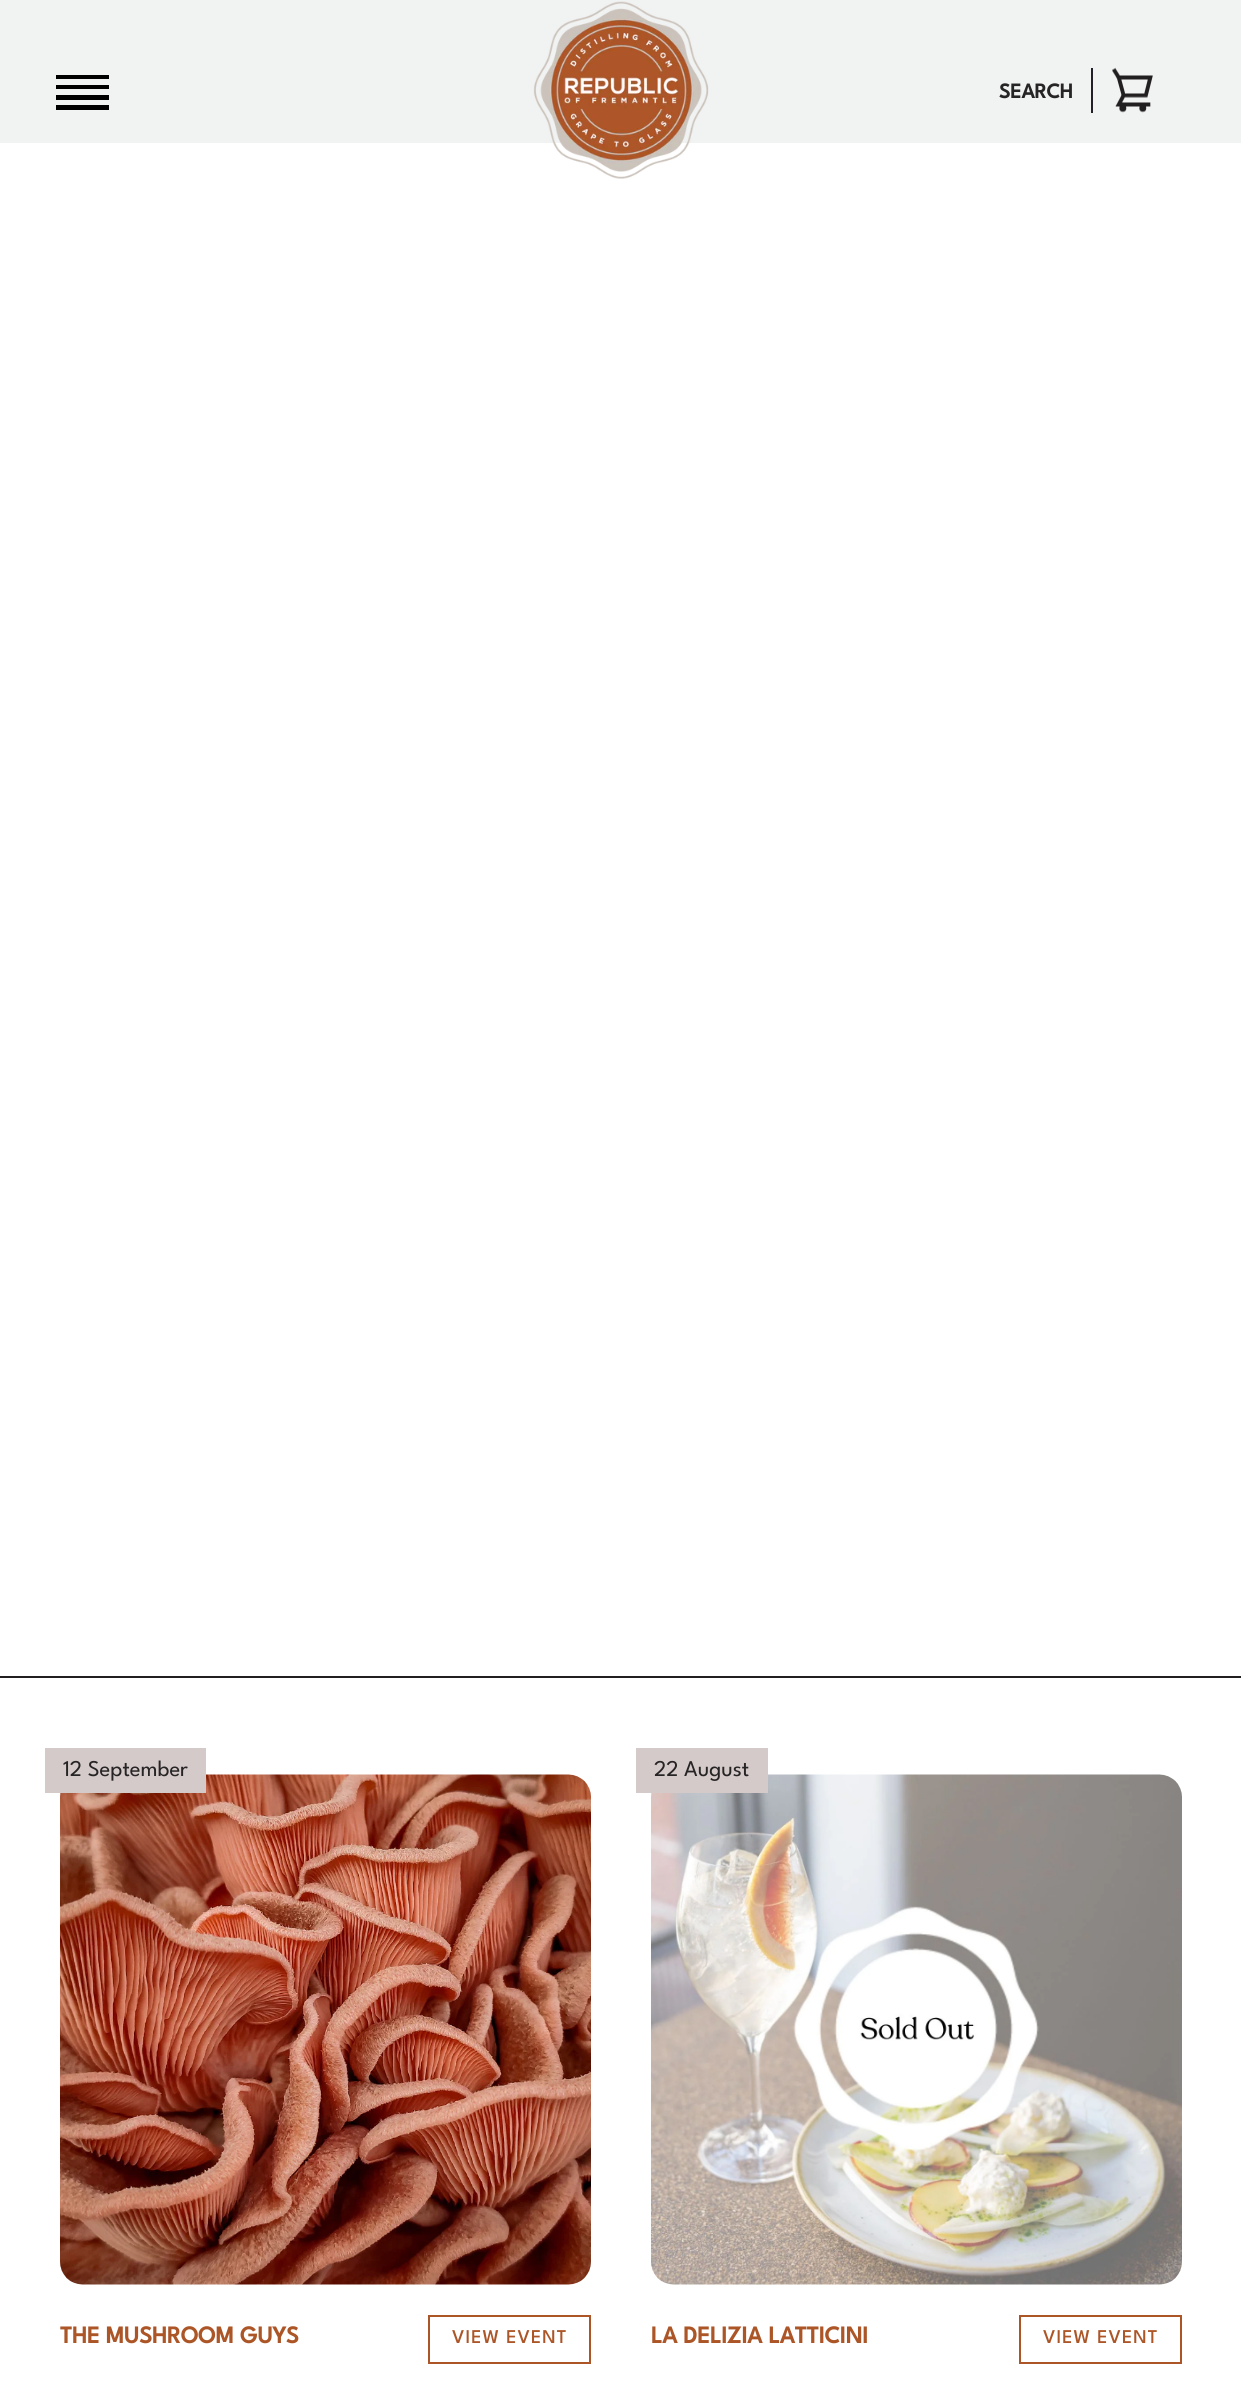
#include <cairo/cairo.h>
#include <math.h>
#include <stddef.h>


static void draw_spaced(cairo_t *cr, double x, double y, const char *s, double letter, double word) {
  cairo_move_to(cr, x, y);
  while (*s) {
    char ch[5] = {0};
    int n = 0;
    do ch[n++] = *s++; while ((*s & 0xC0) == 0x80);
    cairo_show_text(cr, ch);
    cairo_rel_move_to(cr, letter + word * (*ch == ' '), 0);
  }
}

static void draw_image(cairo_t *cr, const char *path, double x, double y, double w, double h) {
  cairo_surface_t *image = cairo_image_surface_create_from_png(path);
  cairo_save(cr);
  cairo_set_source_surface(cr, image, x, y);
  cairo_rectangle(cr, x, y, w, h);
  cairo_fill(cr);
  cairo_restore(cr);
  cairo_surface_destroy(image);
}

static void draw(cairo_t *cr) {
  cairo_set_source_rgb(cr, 1, 1, 1);
  cairo_paint(cr);
  cairo_set_source_rgb(cr, 241 / 255.0, 242 / 255.0, 242 / 255.0);
  cairo_rectangle(cr, 0, 0, 1241, 143);
  cairo_fill(cr);
  cairo_set_source_rgb(cr, 0, 0, 0);
  cairo_rectangle(cr, 56, 75, 53, 4);
  cairo_fill(cr);
  cairo_rectangle(cr, 56, 85, 53, 4);
  cairo_fill(cr);
  cairo_rectangle(cr, 56, 95, 53, 5);
  cairo_fill(cr);
  cairo_rectangle(cr, 56, 105, 53, 5);
  cairo_fill(cr);
  draw_image(cr, "images/1.png", 533, 1, 176, 178);
  cairo_set_source_rgb(cr, 34 / 255.0, 31 / 255.0, 40 / 255.0);
  cairo_rectangle(cr, 1091, 68, 2, 45);
  cairo_fill(cr);
  draw_image(cr, "images/2.png", 1112, 67, 41, 46);
  cairo_set_source_rgb(cr, 34 / 255.0, 31 / 255.0, 32 / 255.0);
  cairo_rectangle(cr, 0, 1676, 1241, 2);
  cairo_fill(cr);
  draw_image(cr, "images/3.png", 60, 1774, 531, 511);
  cairo_set_source_rgb(cr, 212 / 255.0, 202 / 255.0, 201 / 255.0);
  cairo_rectangle(cr, 45, 1748, 161, 45);
  cairo_fill(cr);
  cairo_rectangle(cr, 429, 2316, 161, 47);
  cairo_set_source_rgb(cr, 172 / 255.0, 86 / 255.0, 40 / 255.0);
  cairo_stroke(cr);
  draw_image(cr, "images/4.png", 651, 1774, 531, 511);
  cairo_set_source_rgb(cr, 212 / 255.0, 202 / 255.0, 201 / 255.0);
  cairo_rectangle(cr, 636, 1748, 132, 45);
  cairo_fill(cr);
  cairo_rectangle(cr, 1020, 2316, 161, 47);
  cairo_set_source_rgb(cr, 172 / 255.0, 86 / 255.0, 40 / 255.0);
  cairo_stroke(cr);
  cairo_select_font_face(cr, "League Spartan", CAIRO_FONT_SLANT_NORMAL, CAIRO_FONT_WEIGHT_BOLD);
  cairo_set_font_size(cr, 21);
  cairo_set_source_rgb(cr, 38 / 255.0, 36 / 255.0, 37 / 255.0);
  cairo_move_to(cr, 999, 98);
  cairo_show_text(cr, "SEARCH");
  cairo_select_font_face(cr, "League Spartan", CAIRO_FONT_SLANT_NORMAL, CAIRO_FONT_WEIGHT_NORMAL);
  cairo_set_font_size(cr, 22.5);
  cairo_move_to(cr, 63, 1776);
  cairo_show_text(cr, "12 September");
  cairo_select_font_face(cr, "League Spartan", CAIRO_FONT_SLANT_NORMAL, CAIRO_FONT_WEIGHT_BOLD);
  cairo_set_font_size(cr, 24);
  cairo_set_source_rgb(cr, 172 / 255.0, 86 / 255.0, 40 / 255.0);
  cairo_move_to(cr, 60, 2343);
  cairo_show_text(cr, "THE MUSHROOM GUYS");
  cairo_select_font_face(cr, "League Spartan Medium", CAIRO_FONT_SLANT_NORMAL, CAIRO_FONT_WEIGHT_NORMAL);
  cairo_set_font_size(cr, 19.5);
  draw_spaced(cr, 452, 2343, "VIEW EVENT", 1, 0);
  cairo_select_font_face(cr, "League Spartan", CAIRO_FONT_SLANT_NORMAL, CAIRO_FONT_WEIGHT_NORMAL);
  cairo_set_font_size(cr, 22.5);
  cairo_set_source_rgb(cr, 38 / 255.0, 36 / 255.0, 37 / 255.0);
  cairo_move_to(cr, 654, 1776);
  cairo_show_text(cr, "22 August");
  cairo_select_font_face(cr, "League Spartan", CAIRO_FONT_SLANT_NORMAL, CAIRO_FONT_WEIGHT_BOLD);
  cairo_set_font_size(cr, 24);
  cairo_set_source_rgb(cr, 172 / 255.0, 86 / 255.0, 40 / 255.0);
  cairo_move_to(cr, 651, 2343);
  cairo_show_text(cr, "LA DELIZIA LATTICINI");
  cairo_select_font_face(cr, "League Spartan Medium", CAIRO_FONT_SLANT_NORMAL, CAIRO_FONT_WEIGHT_NORMAL);
  cairo_set_font_size(cr, 19.5);
  draw_spaced(cr, 1043, 2343, "VIEW EVENT", 1, 0);
}

int main(void) {
  cairo_surface_t *surface = cairo_image_surface_create(CAIRO_FORMAT_RGB24, 1241, 2393);
  cairo_t *cr = cairo_create(surface);
  cairo_font_options_t *options = cairo_font_options_create();
  cairo_font_options_set_hint_metrics(options, CAIRO_HINT_METRICS_OFF);
  cairo_font_options_set_hint_style(options, CAIRO_HINT_STYLE_NONE);
  cairo_set_font_options(cr, options);
  cairo_set_miter_limit(cr, 4);
  draw(cr);
  cairo_surface_write_to_png(surface, "out.png");
  cairo_font_options_destroy(options);
  cairo_destroy(cr);
  cairo_surface_destroy(surface);
  return 0;
}
